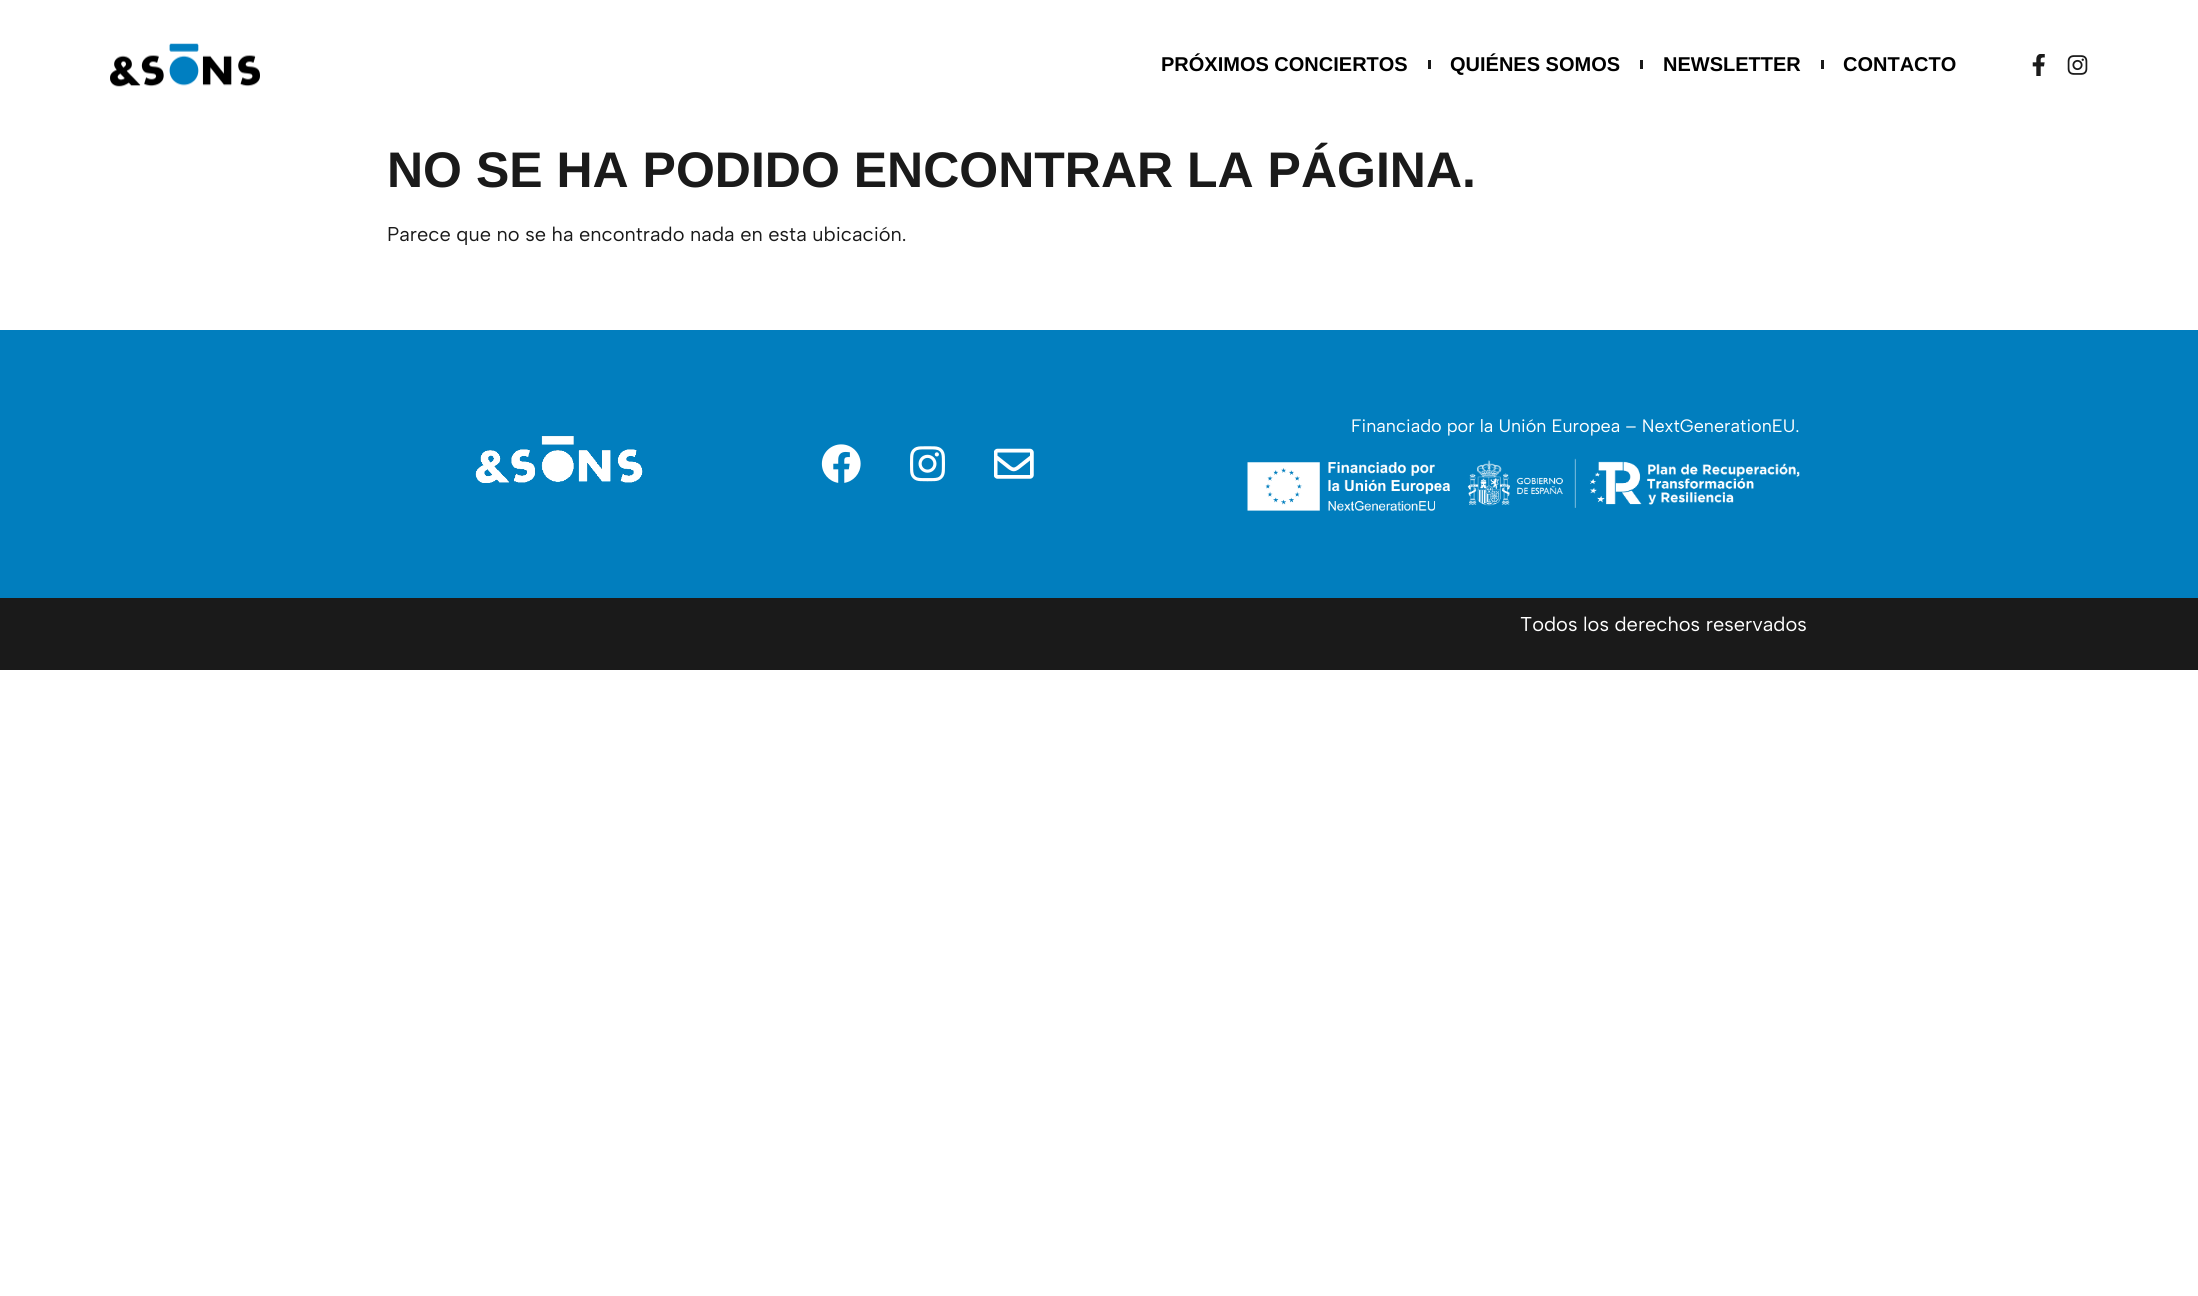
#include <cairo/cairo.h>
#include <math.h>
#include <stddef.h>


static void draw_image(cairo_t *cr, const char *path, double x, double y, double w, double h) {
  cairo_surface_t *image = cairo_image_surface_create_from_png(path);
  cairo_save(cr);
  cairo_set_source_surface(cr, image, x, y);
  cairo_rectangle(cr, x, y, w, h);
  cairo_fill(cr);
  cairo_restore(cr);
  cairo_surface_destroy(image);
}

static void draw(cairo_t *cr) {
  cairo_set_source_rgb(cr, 1, 1, 1);
  cairo_paint(cr);
  draw_image(cr, "images/1.png", 110, 43, 150, 44);
  cairo_set_source_rgb(cr, 26 / 255.0, 26 / 255.0, 26 / 255.0);
  cairo_rectangle(cr, 1428, 60, 3, 9);
  cairo_fill(cr);
  cairo_rectangle(cr, 1640, 60, 3, 9);
  cairo_fill(cr);
  cairo_rectangle(cr, 1821, 60, 3, 9);
  cairo_fill(cr);
  draw_image(cr, "images/2.png", 2032, 54, 13, 22);
  draw_image(cr, "images/3.png", 2067, 55, 21, 20);
  cairo_set_source_rgb(cr, 1 / 255.0, 126 / 255.0, 190 / 255.0);
  cairo_rectangle(cr, 0, 330, 2198, 268);
  cairo_fill(cr);
  draw_image(cr, "images/4.png", 1247, 462, 203, 49);
  draw_image(cr, "images/5.png", 1467, 458, 333, 50);
  draw_image(cr, "images/6.png", 475, 435, 168, 48);
  draw_image(cr, "images/7.png", 821, 444, 40, 39);
  draw_image(cr, "images/8.png", 910, 446, 35, 36);
  draw_image(cr, "images/9.png", 994, 448, 40, 31);
  cairo_set_source_rgb(cr, 26 / 255.0, 26 / 255.0, 26 / 255.0);
  cairo_rectangle(cr, 0, 598, 2198, 72);
  cairo_fill(cr);
  cairo_select_font_face(cr, "Liberation Sans", CAIRO_FONT_SLANT_NORMAL, CAIRO_FONT_WEIGHT_BOLD);
  cairo_set_font_size(cr, 20);
  cairo_set_source_rgb(cr, 0, 0, 0);
  cairo_move_to(cr, 1161, 71);
  cairo_show_text(cr, "PRÓXIMOS CONCIERTOS");
  cairo_move_to(cr, 1450, 71);
  cairo_show_text(cr, "QUIÉNES SOMOS");
  cairo_move_to(cr, 1663, 71);
  cairo_show_text(cr, "NEWSLETTER");
  cairo_move_to(cr, 1843, 71);
  cairo_show_text(cr, "CONTACTO");
  cairo_set_font_size(cr, 50);
  cairo_set_source_rgb(cr, 26 / 255.0, 26 / 255.0, 26 / 255.0);
  cairo_move_to(cr, 387, 187);
  cairo_show_text(cr, "NO SE HA PODIDO ENCONTRAR LA PÁGINA.");
  cairo_select_font_face(cr, "Albert Sans", CAIRO_FONT_SLANT_NORMAL, CAIRO_FONT_WEIGHT_NORMAL);
  cairo_set_font_size(cr, 20);
  cairo_move_to(cr, 387, 241);
  cairo_show_text(cr, "Parece que no se ha encontrado nada en esta ubicación.");
  cairo_set_font_size(cr, 18);
  cairo_set_source_rgb(cr, 1, 1, 1);
  cairo_move_to(cr, 1351, 432);
  cairo_show_text(cr, "Financiado por la Unión Europea – NextGenerationEU.");
  cairo_set_font_size(cr, 20);
  cairo_move_to(cr, 1520, 631);
  cairo_show_text(cr, "Todos los derechos reservados");
}

int main(void) {
  cairo_surface_t *surface = cairo_image_surface_create(CAIRO_FORMAT_RGB24, 2198, 1296);
  cairo_t *cr = cairo_create(surface);
  cairo_font_options_t *options = cairo_font_options_create();
  cairo_font_options_set_hint_metrics(options, CAIRO_HINT_METRICS_OFF);
  cairo_font_options_set_hint_style(options, CAIRO_HINT_STYLE_NONE);
  cairo_set_font_options(cr, options);
  cairo_set_miter_limit(cr, 4);
  draw(cr);
  cairo_surface_write_to_png(surface, "out.png");
  cairo_font_options_destroy(options);
  cairo_destroy(cr);
  cairo_surface_destroy(surface);
  return 0;
}
